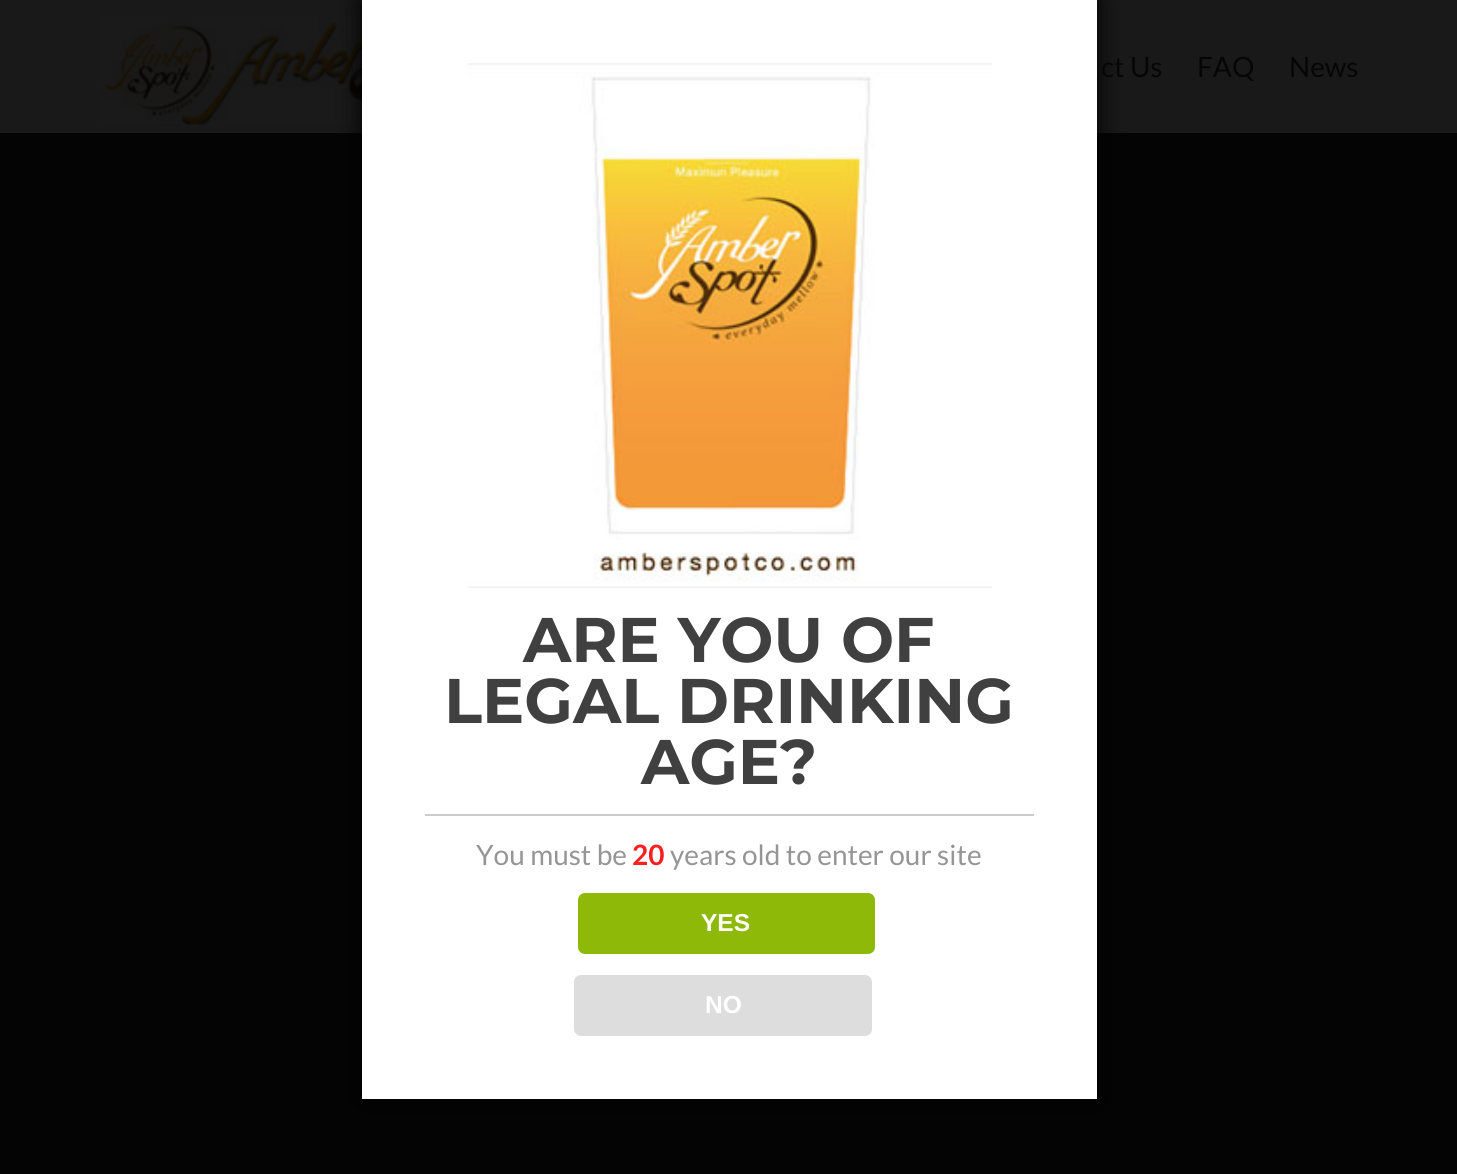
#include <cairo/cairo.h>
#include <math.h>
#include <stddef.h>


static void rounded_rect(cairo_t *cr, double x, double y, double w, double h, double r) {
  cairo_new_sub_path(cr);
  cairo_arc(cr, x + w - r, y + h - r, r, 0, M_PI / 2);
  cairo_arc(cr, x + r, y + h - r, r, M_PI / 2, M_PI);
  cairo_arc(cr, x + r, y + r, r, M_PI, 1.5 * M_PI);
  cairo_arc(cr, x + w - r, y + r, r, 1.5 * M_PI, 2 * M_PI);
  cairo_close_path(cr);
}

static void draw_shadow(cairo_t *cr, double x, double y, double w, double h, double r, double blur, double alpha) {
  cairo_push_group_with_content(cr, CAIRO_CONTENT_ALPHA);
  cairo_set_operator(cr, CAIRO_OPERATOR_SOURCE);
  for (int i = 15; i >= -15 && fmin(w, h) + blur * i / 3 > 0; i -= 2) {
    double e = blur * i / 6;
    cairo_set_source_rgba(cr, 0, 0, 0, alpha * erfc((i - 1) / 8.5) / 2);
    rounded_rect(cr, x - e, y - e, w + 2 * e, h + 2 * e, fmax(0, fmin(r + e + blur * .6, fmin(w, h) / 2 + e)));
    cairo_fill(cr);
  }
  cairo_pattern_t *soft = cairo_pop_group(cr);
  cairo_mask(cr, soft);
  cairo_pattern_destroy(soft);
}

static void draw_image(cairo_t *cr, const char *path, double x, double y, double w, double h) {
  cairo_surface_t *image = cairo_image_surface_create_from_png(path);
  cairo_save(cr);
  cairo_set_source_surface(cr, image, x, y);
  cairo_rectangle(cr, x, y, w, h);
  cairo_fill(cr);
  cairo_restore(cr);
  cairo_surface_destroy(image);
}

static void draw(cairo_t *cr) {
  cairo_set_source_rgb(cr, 4 / 255.0, 4 / 255.0, 4 / 255.0);
  cairo_paint(cr);
  cairo_set_source_rgb(cr, 25 / 255.0, 25 / 255.0, 25 / 255.0);
  cairo_rectangle(cr, 0, 0, 1457, 133);
  cairo_fill(cr);
  draw_image(cr, "images/1.png", 99, 15, 263, 110);
  cairo_set_source_rgb(cr, 0, 0, 0);
  draw_shadow(cr, 362, 0, 735, 1099, 0, 13, 1);
  cairo_set_source_rgb(cr, 1, 1, 1);
  cairo_rectangle(cr, 362, 0, 735, 1099);
  cairo_fill(cr);
  draw_image(cr, "images/2.png", 467, 63, 525, 525);
  cairo_set_source_rgb(cr, 204 / 255.0, 204 / 255.0, 204 / 255.0);
  cairo_rectangle(cr, 425, 814, 609, 2);
  cairo_fill(cr);
  cairo_set_source_rgb(cr, 142 / 255.0, 185 / 255.0, 8 / 255.0);
  rounded_rect(cr, 578, 893, 297, 61, 7);
  cairo_fill(cr);
  cairo_set_source_rgb(cr, 221 / 255.0, 221 / 255.0, 221 / 255.0);
  rounded_rect(cr, 574, 975, 298, 61, 7);
  cairo_fill(cr);
  cairo_select_font_face(cr, "Lato", CAIRO_FONT_SLANT_NORMAL, CAIRO_FONT_WEIGHT_NORMAL);
  cairo_set_font_size(cr, 28);
  cairo_set_source_rgb(cr, 6 / 255.0, 6 / 255.0, 6 / 255.0);
  cairo_move_to(cr, 1101, 77);
  cairo_show_text(cr, "ct Us");
  cairo_move_to(cr, 1197, 77);
  cairo_show_text(cr, "FAQ");
  cairo_move_to(cr, 1289, 77);
  cairo_show_text(cr, "News");
  cairo_select_font_face(cr, "Montserrat", CAIRO_FONT_SLANT_NORMAL, CAIRO_FONT_WEIGHT_BOLD);
  cairo_set_font_size(cr, 63);
  cairo_set_source_rgb(cr, 64 / 255.0, 64 / 255.0, 64 / 255.0);
  cairo_move_to(cr, 523, 662);
  cairo_show_text(cr, "ARE YOU OF");
  cairo_move_to(cr, 444, 723);
  cairo_show_text(cr, "LEGAL DRINKING");
  cairo_move_to(cr, 641, 784);
  cairo_show_text(cr, "AGE?");
  cairo_select_font_face(cr, "Lato", CAIRO_FONT_SLANT_NORMAL, CAIRO_FONT_WEIGHT_NORMAL);
  cairo_set_font_size(cr, 28);
  cairo_set_source_rgb(cr, 149 / 255.0, 149 / 255.0, 149 / 255.0);
  cairo_move_to(cr, 476, 865);
  cairo_show_text(cr, "You must be");
  cairo_select_font_face(cr, "Lato", CAIRO_FONT_SLANT_NORMAL, CAIRO_FONT_WEIGHT_BOLD);
  cairo_set_source_rgb(cr, 1, 31 / 255.0, 31 / 255.0);
  cairo_move_to(cr, 632, 865);
  cairo_show_text(cr, "20");
  cairo_select_font_face(cr, "Lato", CAIRO_FONT_SLANT_NORMAL, CAIRO_FONT_WEIGHT_NORMAL);
  cairo_set_source_rgb(cr, 149 / 255.0, 149 / 255.0, 149 / 255.0);
  cairo_move_to(cr, 670, 865);
  cairo_show_text(cr, "years old to enter our site");
  cairo_select_font_face(cr, "Liberation Sans", CAIRO_FONT_SLANT_NORMAL, CAIRO_FONT_WEIGHT_BOLD);
  cairo_set_font_size(cr, 24.5);
  cairo_set_source_rgb(cr, 1, 1, 1);
  cairo_move_to(cr, 701, 931);
  cairo_show_text(cr, "YES");
  cairo_move_to(cr, 705, 1013);
  cairo_show_text(cr, "NO");
}

int main(void) {
  cairo_surface_t *surface = cairo_image_surface_create(CAIRO_FORMAT_RGB24, 1457, 1174);
  cairo_t *cr = cairo_create(surface);
  cairo_font_options_t *options = cairo_font_options_create();
  cairo_font_options_set_hint_metrics(options, CAIRO_HINT_METRICS_OFF);
  cairo_font_options_set_hint_style(options, CAIRO_HINT_STYLE_NONE);
  cairo_set_font_options(cr, options);
  cairo_set_miter_limit(cr, 4);
  draw(cr);
  cairo_surface_write_to_png(surface, "out.png");
  cairo_font_options_destroy(options);
  cairo_destroy(cr);
  cairo_surface_destroy(surface);
  return 0;
}
